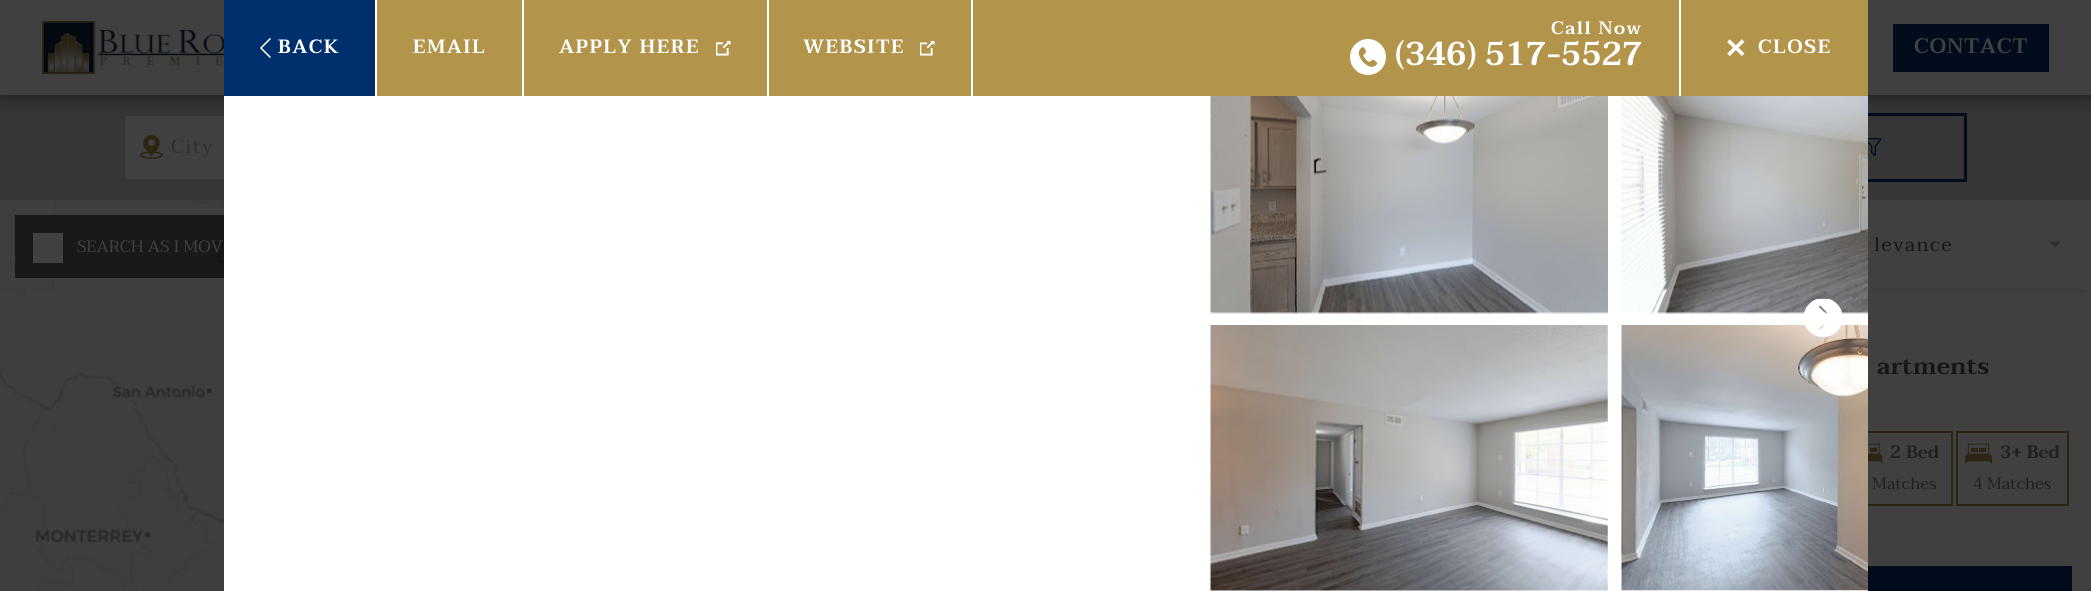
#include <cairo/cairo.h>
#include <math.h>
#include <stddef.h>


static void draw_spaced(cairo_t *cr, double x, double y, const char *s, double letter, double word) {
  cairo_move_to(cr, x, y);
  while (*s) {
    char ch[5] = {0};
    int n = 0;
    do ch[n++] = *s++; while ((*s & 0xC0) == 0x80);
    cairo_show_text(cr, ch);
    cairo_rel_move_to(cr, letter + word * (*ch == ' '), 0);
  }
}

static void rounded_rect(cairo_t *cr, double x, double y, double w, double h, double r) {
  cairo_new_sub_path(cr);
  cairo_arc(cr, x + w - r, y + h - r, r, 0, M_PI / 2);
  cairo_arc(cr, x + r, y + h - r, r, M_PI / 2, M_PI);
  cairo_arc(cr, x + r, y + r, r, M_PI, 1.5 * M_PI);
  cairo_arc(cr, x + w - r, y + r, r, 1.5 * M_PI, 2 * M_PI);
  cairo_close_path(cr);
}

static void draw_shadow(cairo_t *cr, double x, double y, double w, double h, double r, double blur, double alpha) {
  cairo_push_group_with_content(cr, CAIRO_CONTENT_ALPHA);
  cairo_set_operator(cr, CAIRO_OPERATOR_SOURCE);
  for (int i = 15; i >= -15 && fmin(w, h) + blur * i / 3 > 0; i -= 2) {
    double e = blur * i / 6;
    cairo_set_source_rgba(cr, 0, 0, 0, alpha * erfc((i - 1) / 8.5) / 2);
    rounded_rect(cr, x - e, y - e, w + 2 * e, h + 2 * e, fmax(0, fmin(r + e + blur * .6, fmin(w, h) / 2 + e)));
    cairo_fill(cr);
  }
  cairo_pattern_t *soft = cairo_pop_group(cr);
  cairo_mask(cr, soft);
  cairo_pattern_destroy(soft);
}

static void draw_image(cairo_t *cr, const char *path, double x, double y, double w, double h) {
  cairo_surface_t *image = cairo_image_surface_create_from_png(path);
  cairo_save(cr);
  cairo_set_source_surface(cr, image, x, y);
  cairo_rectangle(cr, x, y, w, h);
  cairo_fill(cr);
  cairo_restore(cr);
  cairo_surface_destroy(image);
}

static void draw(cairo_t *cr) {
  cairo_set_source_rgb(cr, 64 / 255.0, 64 / 255.0, 64 / 255.0);
  cairo_paint(cr);
  cairo_set_source_rgb(cr, 54 / 255.0, 54 / 255.0, 54 / 255.0);
  cairo_rectangle(cr, 0, 95, 2091, 105);
  cairo_fill(cr);
  cairo_rectangle(cr, 1650.5, 114.5, 315, 66);
  cairo_set_source_rgb(cr, 0, 12 / 255.0, 28 / 255.0);
  cairo_set_line_width(cr, 3);
  cairo_stroke(cr);
  cairo_rectangle(cr, 1843, 432, 109, 73);
  cairo_set_source_rgb(cr, 45 / 255.0, 37 / 255.0, 19 / 255.0);
  cairo_set_line_width(cr, 2);
  cairo_stroke(cr);
  cairo_set_source_rgb(cr, 64 / 255.0, 64 / 255.0, 64 / 255.0);
  cairo_rectangle(cr, 125, 116, 99, 63);
  cairo_fill(cr);
  cairo_set_source_rgb(cr, 28 / 255.0, 28 / 255.0, 28 / 255.0);
  draw_shadow(cr, -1, -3, 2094, 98, 0, 10, 1);
  cairo_set_source_rgb(cr, 1, 1, 1);
  cairo_rectangle(cr, 224, 96, 1644, 495);
  cairo_fill(cr);
  cairo_set_source_rgb(cr, 64 / 255.0, 64 / 255.0, 64 / 255.0);
  cairo_rectangle(cr, 0, 0, 2091, 95);
  cairo_fill(cr);
  cairo_set_source_rgb(cr, 179 / 255.0, 148 / 255.0, 75 / 255.0);
  cairo_rectangle(cr, 377, 0, 1491, 96);
  cairo_fill(cr);
  cairo_set_source_rgb(cr, 0, 47 / 255.0, 110 / 255.0);
  cairo_rectangle(cr, 224, 0, 151, 96);
  cairo_fill(cr);
  cairo_set_source_rgb(cr, 1, 1, 1);
  cairo_rectangle(cr, 375, 0, 2, 96);
  cairo_fill(cr);
  draw_image(cr, "images/1.png", 260, 38, 11, 20);
  cairo_rectangle(cr, 522, 0, 2, 96);
  cairo_fill(cr);
  cairo_rectangle(cr, 767, 0, 2, 96);
  cairo_fill(cr);
  draw_image(cr, "images/2.png", 716, 41, 15, 15);
  cairo_rectangle(cr, 971, 0, 2, 96);
  cairo_fill(cr);
  draw_image(cr, "images/2.png", 920, 41, 15, 15);
  draw_image(cr, "images/3.png", 1350, 39, 36, 36);
  cairo_rectangle(cr, 1679, 0, 2, 96);
  cairo_fill(cr);
  draw_image(cr, "images/4.png", 1210, 96, 398, 218);
  draw_image(cr, "images/5.png", 1621, 96, 247, 218);
  draw_image(cr, "images/6.png", 1210, 325, 398, 266);
  draw_image(cr, "images/7.png", 1621, 325, 247, 266);
  draw_image(cr, "images/8.png", 1804, 299, 39, 39);
  draw_image(cr, "images/9.png", 140, 135, 23, 24);
  draw_image(cr, "images/10.png", 1868, 138, 14, 18);
  draw_image(cr, "images/11.png", 0, 200, 116, 91);
  draw_image(cr, "images/12.png", 116, 200, 108, 91);
  draw_image(cr, "images/13.png", 0, 291, 116, 300);
  draw_image(cr, "images/14.png", 116, 291, 108, 300);
  cairo_set_source_rgba(cr, 11 / 255.0, 11 / 255.0, 11 / 255.0, 0.7);
  cairo_rectangle(cr, 15, 215, 209, 63);
  cairo_fill(cr);
  cairo_set_source_rgb(cr, 64 / 255.0, 64 / 255.0, 64 / 255.0);
  cairo_rectangle(cr, 33, 233, 30, 30);
  cairo_fill(cr);
  cairo_set_source_rgb(cr, 47 / 255.0, 47 / 255.0, 47 / 255.0);
  cairo_new_path(cr);
  cairo_move_to(cr, 2049, 241.5);
  cairo_line_to(cr, 2061, 241.5);
  cairo_line_to(cr, 2055, 247.5);
  cairo_close_path(cr);
  cairo_fill(cr);
  cairo_set_source_rgb(cr, 60 / 255.0, 60 / 255.0, 60 / 255.0);
  cairo_rectangle(cr, 1868, 290, 216, 2);
  cairo_fill(cr);
  draw_image(cr, "images/15.png", 1868, 442, 15, 22);
  cairo_rectangle(cr, 1957, 432, 111, 73);
  cairo_set_source_rgb(cr, 45 / 255.0, 37 / 255.0, 19 / 255.0);
  cairo_stroke(cr);
  draw_image(cr, "images/16.png", 1965, 442, 27, 22);
  cairo_set_source_rgb(cr, 0, 12 / 255.0, 28 / 255.0);
  cairo_rectangle(cr, 1868, 566, 204, 25);
  cairo_fill(cr);
  draw_image(cr, "images/17.png", 42, 21, 182, 53);
  cairo_rectangle(cr, 1893, 24, 156, 48);
  cairo_fill(cr);
  cairo_select_font_face(cr, "Taviraj SemiBold", CAIRO_FONT_SLANT_NORMAL, CAIRO_FONT_WEIGHT_NORMAL);
  cairo_set_font_size(cr, 19.25);
  cairo_set_source_rgb(cr, 1, 1, 1);
  draw_spaced(cr, 278, 53, "BACK", 1.5, 0);
  draw_spaced(cr, 413, 53, "EMAIL", 1.5, 0);
  draw_spaced(cr, 559, 53, "APPLY HERE", 1.5, 0);
  draw_spaced(cr, 803, 53, "WEBSITE", 1.5, 0);
  cairo_set_font_size(cr, 18);
  draw_spaced(cr, 1551, 34, "Call Now", 1.5, 0);
  cairo_set_font_size(cr, 33);
  cairo_move_to(cr, 1395, 65);
  cairo_show_text(cr, "(346) 517-5527");
  cairo_set_font_size(cr, 36);
  draw_spaced(cr, 1725, 59, "×", 1.5, 0);
  cairo_set_font_size(cr, 19.25);
  draw_spaced(cr, 1758, 53, "CLOSE", 1.5, 0);
  cairo_select_font_face(cr, "Taviraj", CAIRO_FONT_SLANT_NORMAL, CAIRO_FONT_WEIGHT_NORMAL);
  cairo_set_font_size(cr, 19.5);
  cairo_set_source_rgb(cr, 45 / 255.0, 45 / 255.0, 45 / 255.0);
  draw_spaced(cr, 171, 153, "City", 1.5, 0);
  cairo_set_font_size(cr, 16.5);
  cairo_set_source_rgb(cr, 64 / 255.0, 64 / 255.0, 64 / 255.0);
  cairo_move_to(cr, 77, 252);
  cairo_show_text(cr, "SEARCH AS I MOV");
  cairo_set_font_size(cr, 19.5);
  cairo_set_source_rgb(cr, 22 / 255.0, 22 / 255.0, 23 / 255.0);
  draw_spaced(cr, 1874, 251, "levance", 1.5, 0);
  cairo_select_font_face(cr, "Taviraj SemiBold", CAIRO_FONT_SLANT_NORMAL, CAIRO_FONT_WEIGHT_NORMAL);
  cairo_set_font_size(cr, 24);
  cairo_move_to(cr, 1877, 374);
  cairo_show_text(cr, "artments");
  cairo_set_font_size(cr, 18);
  cairo_set_source_rgb(cr, 32 / 255.0, 32 / 255.0, 32 / 255.0);
  cairo_move_to(cr, 1890, 458);
  cairo_show_text(cr, "2 Bed");
  cairo_select_font_face(cr, "Taviraj", CAIRO_FONT_SLANT_NORMAL, CAIRO_FONT_WEIGHT_NORMAL);
  cairo_set_font_size(cr, 16.5);
  cairo_move_to(cr, 1872, 489);
  cairo_show_text(cr, "Matches");
  cairo_select_font_face(cr, "Taviraj SemiBold", CAIRO_FONT_SLANT_NORMAL, CAIRO_FONT_WEIGHT_NORMAL);
  cairo_set_font_size(cr, 18);
  cairo_move_to(cr, 2000, 458);
  cairo_show_text(cr, "3+ Bed");
  cairo_select_font_face(cr, "Taviraj", CAIRO_FONT_SLANT_NORMAL, CAIRO_FONT_WEIGHT_NORMAL);
  cairo_set_font_size(cr, 16.5);
  cairo_move_to(cr, 1973, 489);
  cairo_show_text(cr, "4 Matches");
  cairo_select_font_face(cr, "Taviraj SemiBold", CAIRO_FONT_SLANT_NORMAL, CAIRO_FONT_WEIGHT_NORMAL);
  cairo_set_font_size(cr, 21);
  cairo_set_source_rgb(cr, 64 / 255.0, 64 / 255.0, 64 / 255.0);
  draw_spaced(cr, 1914, 53, "CONTACT", 0.75, 0);
}

int main(void) {
  cairo_surface_t *surface = cairo_image_surface_create(CAIRO_FORMAT_RGB24, 2091, 591);
  cairo_t *cr = cairo_create(surface);
  cairo_font_options_t *options = cairo_font_options_create();
  cairo_font_options_set_hint_metrics(options, CAIRO_HINT_METRICS_OFF);
  cairo_font_options_set_hint_style(options, CAIRO_HINT_STYLE_NONE);
  cairo_set_font_options(cr, options);
  cairo_set_miter_limit(cr, 4);
  draw(cr);
  cairo_surface_write_to_png(surface, "out.png");
  cairo_font_options_destroy(options);
  cairo_destroy(cr);
  cairo_surface_destroy(surface);
  return 0;
}
